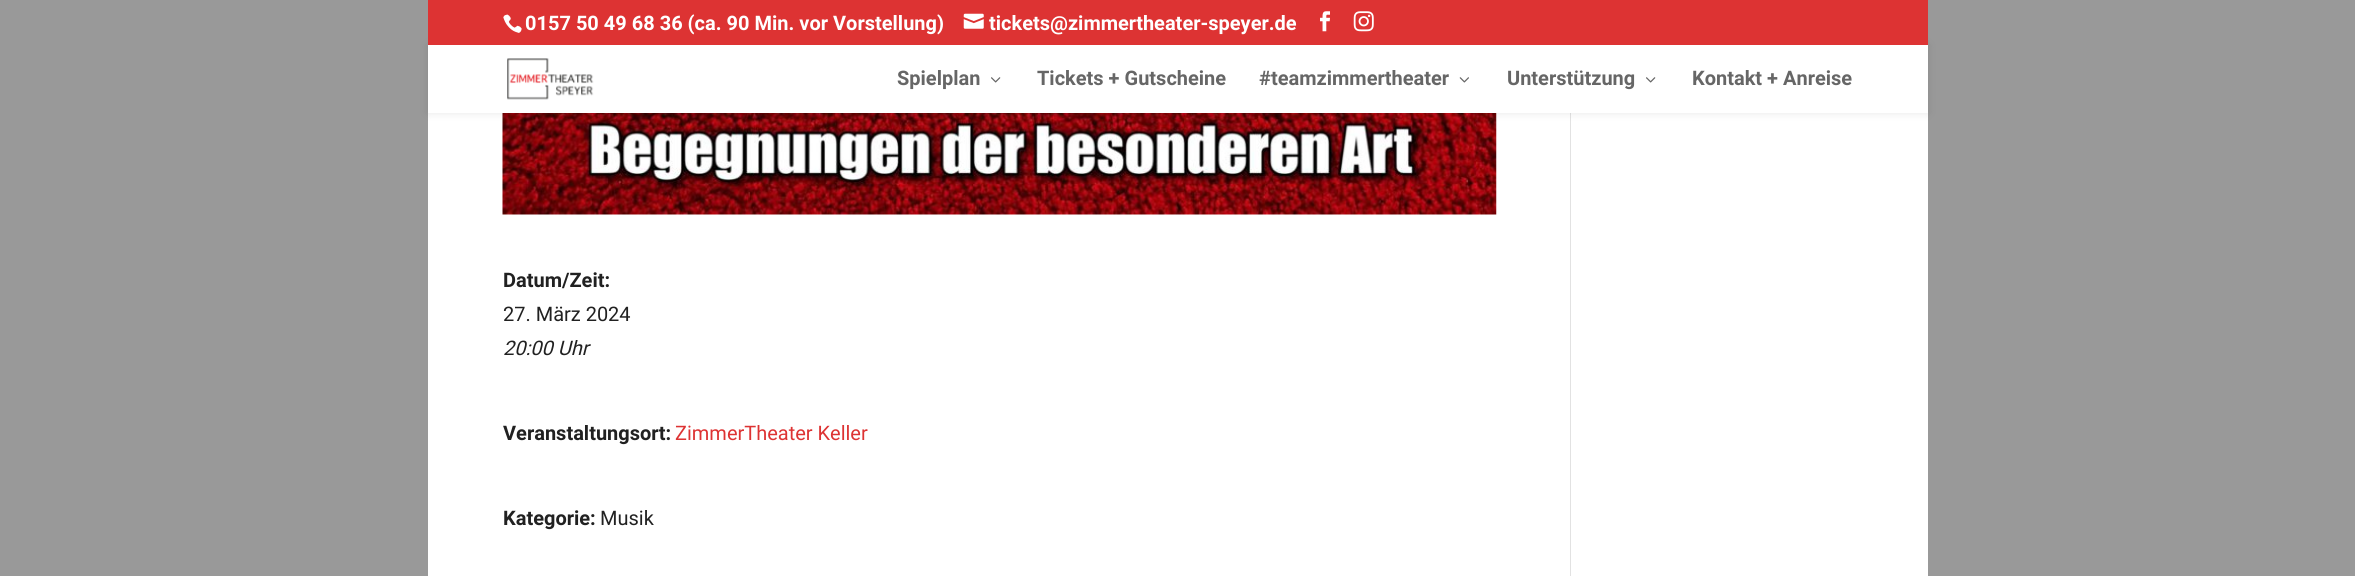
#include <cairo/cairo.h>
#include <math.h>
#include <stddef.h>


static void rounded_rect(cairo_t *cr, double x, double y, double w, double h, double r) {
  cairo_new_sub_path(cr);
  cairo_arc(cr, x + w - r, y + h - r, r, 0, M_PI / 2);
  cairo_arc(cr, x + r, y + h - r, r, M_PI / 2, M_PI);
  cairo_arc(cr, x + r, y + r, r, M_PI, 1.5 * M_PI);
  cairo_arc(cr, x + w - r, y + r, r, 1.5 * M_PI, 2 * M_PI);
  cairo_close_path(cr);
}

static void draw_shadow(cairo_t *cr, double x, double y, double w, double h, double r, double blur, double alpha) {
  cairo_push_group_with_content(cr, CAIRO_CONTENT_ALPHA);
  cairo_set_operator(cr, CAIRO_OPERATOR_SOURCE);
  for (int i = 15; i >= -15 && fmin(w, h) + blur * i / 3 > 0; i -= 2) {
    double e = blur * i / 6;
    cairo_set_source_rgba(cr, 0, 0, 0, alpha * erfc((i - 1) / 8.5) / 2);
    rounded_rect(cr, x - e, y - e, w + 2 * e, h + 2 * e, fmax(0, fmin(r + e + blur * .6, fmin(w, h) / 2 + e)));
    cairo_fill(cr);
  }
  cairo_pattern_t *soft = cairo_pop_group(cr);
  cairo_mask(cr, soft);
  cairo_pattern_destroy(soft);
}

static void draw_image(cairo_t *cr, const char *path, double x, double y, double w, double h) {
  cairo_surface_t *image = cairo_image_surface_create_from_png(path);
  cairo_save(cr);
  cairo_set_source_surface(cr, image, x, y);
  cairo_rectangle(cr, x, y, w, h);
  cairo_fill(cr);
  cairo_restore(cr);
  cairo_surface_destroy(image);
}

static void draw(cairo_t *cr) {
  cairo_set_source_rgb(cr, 153 / 255.0, 153 / 255.0, 153 / 255.0);
  cairo_paint(cr);
  cairo_set_source_rgb(cr, 1, 1, 1);
  cairo_rectangle(cr, 428, 113, 1500, 463);
  cairo_fill(cr);
  draw_image(cr, "images/8.png", 502, 113, 995, 102);
  cairo_set_source_rgb(cr, 226 / 255.0, 226 / 255.0, 226 / 255.0);
  cairo_rectangle(cr, 1570, 113, 1, 463);
  cairo_fill(cr);
  cairo_set_source_rgb(cr, 0, 0, 0);
  draw_shadow(cr, 428, 45, 1500, 68, 0, 4.5, 0.1);
  cairo_set_source_rgb(cr, 221 / 255.0, 51 / 255.0, 51 / 255.0);
  cairo_rectangle(cr, 428, 0, 1500, 45);
  cairo_fill(cr);
  draw_image(cr, "images/1.png", 503, 14, 19, 19);
  draw_image(cr, "images/2.png", 963, 13, 21, 16);
  draw_image(cr, "images/3.png", 1320, 11, 10, 21);
  draw_image(cr, "images/4.png", 1353, 11, 21, 21);
  cairo_set_source_rgb(cr, 1, 1, 1);
  cairo_rectangle(cr, 428, 45, 1500, 68);
  cairo_fill(cr);
  draw_image(cr, "images/5.png", 507, 58, 87, 42);
  draw_image(cr, "images/6.png", 991, 77, 10, 6);
  draw_image(cr, "images/7.png", 1459, 77, 10, 6);
  draw_image(cr, "images/6.png", 1646, 77, 10, 6);
  cairo_select_font_face(cr, "Roboto", CAIRO_FONT_SLANT_NORMAL, CAIRO_FONT_WEIGHT_BOLD);
  cairo_set_font_size(cr, 20);
  cairo_move_to(cr, 525, 30);
  cairo_show_text(cr, "0157 50 49 68 36 (ca. 90 Min. vor Vorstellung)");
  cairo_move_to(cr, 989, 30);
  cairo_show_text(cr, "tickets@zimmertheater-speyer.de");
  cairo_set_source_rgb(cr, 102 / 255.0, 102 / 255.0, 102 / 255.0);
  cairo_move_to(cr, 897, 85);
  cairo_show_text(cr, "Spielplan");
  cairo_move_to(cr, 1037, 85);
  cairo_show_text(cr, "Tickets + Gutscheine");
  cairo_move_to(cr, 1259, 85);
  cairo_show_text(cr, "#teamzimmertheater");
  cairo_move_to(cr, 1507, 85);
  cairo_show_text(cr, "Unterstützung");
  cairo_move_to(cr, 1692, 85);
  cairo_show_text(cr, "Kontakt + Anreise");
  cairo_set_source_rgb(cr, 33 / 255.0, 33 / 255.0, 33 / 255.0);
  cairo_move_to(cr, 503, 287);
  cairo_show_text(cr, "Datum/Zeit:");
  cairo_select_font_face(cr, "Roboto", CAIRO_FONT_SLANT_NORMAL, CAIRO_FONT_WEIGHT_NORMAL);
  cairo_move_to(cr, 503, 321);
  cairo_show_text(cr, "27. März 2024");
  cairo_select_font_face(cr, "Roboto", CAIRO_FONT_SLANT_ITALIC, CAIRO_FONT_WEIGHT_NORMAL);
  cairo_move_to(cr, 503, 355);
  cairo_show_text(cr, "20:00 Uhr");
  cairo_select_font_face(cr, "Roboto", CAIRO_FONT_SLANT_NORMAL, CAIRO_FONT_WEIGHT_BOLD);
  cairo_move_to(cr, 503, 440);
  cairo_show_text(cr, "Veranstaltungsort:");
  cairo_select_font_face(cr, "Roboto", CAIRO_FONT_SLANT_NORMAL, CAIRO_FONT_WEIGHT_NORMAL);
  cairo_set_source_rgb(cr, 221 / 255.0, 51 / 255.0, 51 / 255.0);
  cairo_move_to(cr, 675, 440);
  cairo_show_text(cr, "ZimmerTheater Keller");
  cairo_select_font_face(cr, "Roboto", CAIRO_FONT_SLANT_NORMAL, CAIRO_FONT_WEIGHT_BOLD);
  cairo_set_source_rgb(cr, 33 / 255.0, 33 / 255.0, 33 / 255.0);
  cairo_move_to(cr, 503, 525);
  cairo_show_text(cr, "Kategorie:");
  cairo_select_font_face(cr, "Roboto", CAIRO_FONT_SLANT_NORMAL, CAIRO_FONT_WEIGHT_NORMAL);
  cairo_move_to(cr, 600, 525);
  cairo_show_text(cr, "Musik");
}

int main(void) {
  cairo_surface_t *surface = cairo_image_surface_create(CAIRO_FORMAT_RGB24, 2355, 576);
  cairo_t *cr = cairo_create(surface);
  cairo_font_options_t *options = cairo_font_options_create();
  cairo_font_options_set_hint_metrics(options, CAIRO_HINT_METRICS_OFF);
  cairo_font_options_set_hint_style(options, CAIRO_HINT_STYLE_NONE);
  cairo_set_font_options(cr, options);
  cairo_set_miter_limit(cr, 4);
  draw(cr);
  cairo_surface_write_to_png(surface, "out.png");
  cairo_font_options_destroy(options);
  cairo_destroy(cr);
  cairo_surface_destroy(surface);
  return 0;
}
